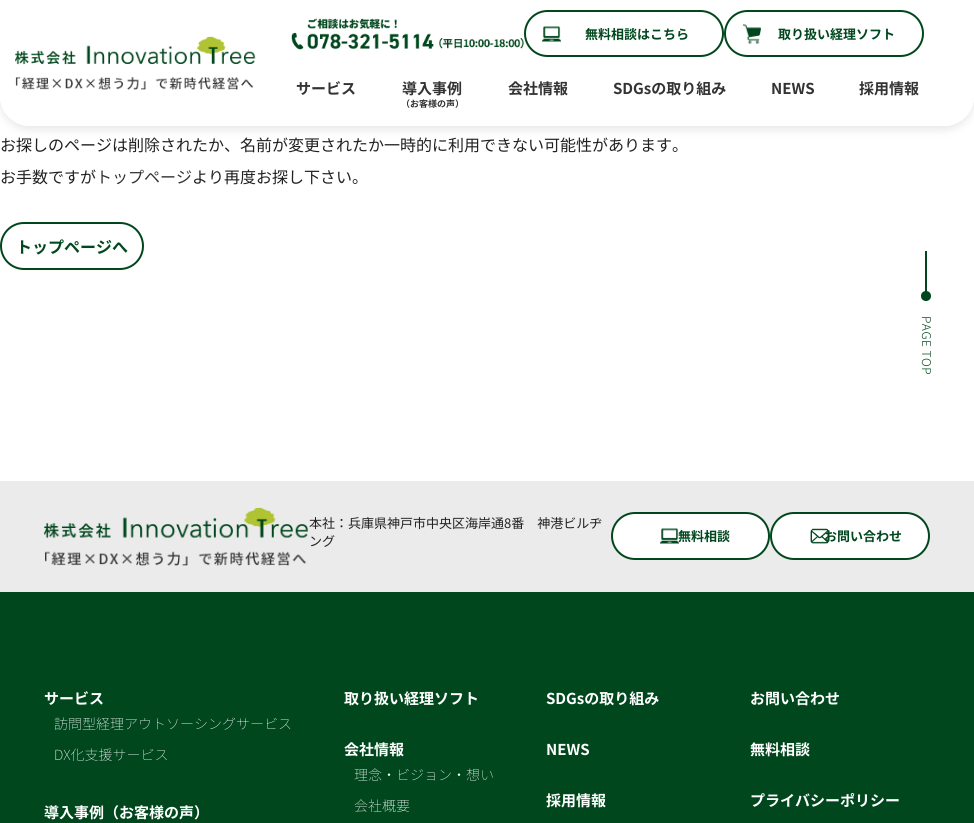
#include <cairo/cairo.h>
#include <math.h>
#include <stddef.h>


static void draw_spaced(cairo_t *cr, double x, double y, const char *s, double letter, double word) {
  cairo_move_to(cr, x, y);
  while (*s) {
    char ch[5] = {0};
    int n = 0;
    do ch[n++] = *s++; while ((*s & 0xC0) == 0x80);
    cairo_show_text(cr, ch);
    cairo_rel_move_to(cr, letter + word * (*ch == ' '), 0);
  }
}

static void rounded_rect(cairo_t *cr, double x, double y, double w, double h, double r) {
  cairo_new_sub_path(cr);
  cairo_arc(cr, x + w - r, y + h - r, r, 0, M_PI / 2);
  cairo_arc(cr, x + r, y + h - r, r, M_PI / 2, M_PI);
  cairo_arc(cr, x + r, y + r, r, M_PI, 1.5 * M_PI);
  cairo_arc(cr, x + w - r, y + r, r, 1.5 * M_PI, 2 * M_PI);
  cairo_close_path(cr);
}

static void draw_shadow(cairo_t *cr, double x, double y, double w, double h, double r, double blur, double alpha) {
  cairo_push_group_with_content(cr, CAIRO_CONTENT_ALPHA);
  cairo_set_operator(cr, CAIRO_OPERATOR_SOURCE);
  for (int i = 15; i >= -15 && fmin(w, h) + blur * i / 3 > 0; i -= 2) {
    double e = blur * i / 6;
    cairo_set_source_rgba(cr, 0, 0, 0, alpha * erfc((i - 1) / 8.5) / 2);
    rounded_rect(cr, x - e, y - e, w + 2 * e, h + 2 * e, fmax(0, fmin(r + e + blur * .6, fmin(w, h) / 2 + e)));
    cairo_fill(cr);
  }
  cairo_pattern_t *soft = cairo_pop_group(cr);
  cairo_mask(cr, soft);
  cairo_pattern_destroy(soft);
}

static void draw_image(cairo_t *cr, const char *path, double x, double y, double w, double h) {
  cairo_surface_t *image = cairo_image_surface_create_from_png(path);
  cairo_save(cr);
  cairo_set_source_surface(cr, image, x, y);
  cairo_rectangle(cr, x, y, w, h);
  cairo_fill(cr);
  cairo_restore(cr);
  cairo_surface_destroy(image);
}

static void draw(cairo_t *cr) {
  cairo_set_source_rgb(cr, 1, 1, 1);
  cairo_paint(cr);
  cairo_save(cr);
  cairo_set_fill_rule(cr, CAIRO_FILL_RULE_EVEN_ODD);
  cairo_new_path(cr);
  cairo_move_to(cr, 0, 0);
  cairo_line_to(cr, 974, 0);
  cairo_line_to(cr, 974, 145);
  cairo_line_to(cr, 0, 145);
  cairo_close_path(cr);
  cairo_move_to(cr, 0, 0);
  cairo_line_to(cr, 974, 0);
  cairo_line_to(cr, 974, 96);
  cairo_curve_to(cr, 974, 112.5, 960.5, 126, 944, 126);
  cairo_line_to(cr, 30, 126);
  cairo_curve_to(cr, 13.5, 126, 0, 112.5, 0, 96);
  cairo_close_path(cr);
  cairo_clip(cr);
  cairo_set_source_rgb(cr, 0, 0, 0);
  draw_shadow(cr, 0, 3, 974, 126, 30, 5, 0.11);
  cairo_restore(cr);
  cairo_set_source_rgba(cr, 1, 1, 1, 0.8);
  cairo_new_path(cr);
  cairo_move_to(cr, 0, 0);
  cairo_line_to(cr, 974, 0);
  cairo_line_to(cr, 974, 96);
  cairo_curve_to(cr, 974, 112.5, 960.5, 126, 944, 126);
  cairo_line_to(cr, 30, 126);
  cairo_curve_to(cr, 13.5, 126, 0, 112.5, 0, 96);
  cairo_close_path(cr);
  cairo_fill(cr);
  draw_image(cr, "images/1.png", 15, 36, 241, 54);
  draw_image(cr, "images/2.png", 291, 18, 233, 32);
  rounded_rect(cr, 525, 11, 198, 45, 22.5);
  cairo_set_source_rgb(cr, 0, 71 / 255.0, 29 / 255.0);
  cairo_stroke(cr);
  draw_image(cr, "images/3.png", 542, 26, 19, 16);
  rounded_rect(cr, 725, 11, 198, 45, 22.5);
  cairo_stroke(cr);
  draw_image(cr, "images/4.png", 743, 24, 18, 20);
  rounded_rect(cr, 1, 223, 142, 46, 23);
  cairo_stroke(cr);
  cairo_arc(cr, 926, 296, 5, 0, 2 * M_PI);
  cairo_fill(cr);
  cairo_rectangle(cr, 925, 251, 2, 50);
  cairo_fill(cr);
  cairo_set_source_rgb(cr, 235 / 255.0, 235 / 255.0, 235 / 255.0);
  cairo_rectangle(cr, 0, 481, 974, 111);
  cairo_fill(cr);
  draw_image(cr, "images/5.png", 44, 507, 265, 59);
  cairo_set_source_rgb(cr, 1, 1, 1);
  rounded_rect(cr, 612, 513, 157, 46, 23);
  cairo_fill_preserve(cr);
  cairo_set_source_rgb(cr, 0, 71 / 255.0, 29 / 255.0);
  cairo_stroke(cr);
  cairo_set_source_rgb(cr, 1, 1, 1);
  rounded_rect(cr, 771, 513, 158, 46, 23);
  cairo_fill_preserve(cr);
  cairo_set_source_rgb(cr, 0, 71 / 255.0, 29 / 255.0);
  cairo_stroke(cr);
  cairo_rectangle(cr, 0, 592, 974, 231);
  cairo_fill(cr);
  cairo_select_font_face(cr, "Noto Sans JP", CAIRO_FONT_SLANT_NORMAL, CAIRO_FONT_WEIGHT_BOLD);
  cairo_set_font_size(cr, 13);
  cairo_move_to(cr, 585, 39);
  cairo_show_text(cr, "無料相談はこちら");
  cairo_move_to(cr, 778, 39);
  cairo_show_text(cr, "取り扱い経理ソフト");
  cairo_set_font_size(cr, 15);
  cairo_set_source_rgb(cr, 51 / 255.0, 51 / 255.0, 51 / 255.0);
  cairo_move_to(cr, 296, 94);
  cairo_show_text(cr, "サービス");
  cairo_move_to(cr, 402, 94);
  cairo_show_text(cr, "導入事例");
  cairo_set_font_size(cr, 9);
  cairo_move_to(cr, 401, 107);
  cairo_show_text(cr, "（お客様の声）");
  cairo_set_font_size(cr, 15);
  cairo_move_to(cr, 508, 94);
  cairo_show_text(cr, "会社情報");
  cairo_move_to(cr, 613, 94);
  cairo_show_text(cr, "SDGsの取り組み");
  cairo_move_to(cr, 771, 94);
  cairo_show_text(cr, "NEWS");
  cairo_move_to(cr, 859, 94);
  cairo_show_text(cr, "採用情報");
  cairo_select_font_face(cr, "Noto Sans JP", CAIRO_FONT_SLANT_NORMAL, CAIRO_FONT_WEIGHT_NORMAL);
  cairo_set_font_size(cr, 16);
  cairo_set_source_rgb(cr, 33 / 255.0, 33 / 255.0, 33 / 255.0);
  cairo_move_to(cr, 0, 151);
  cairo_show_text(cr, "お探しのページは削除されたか、名前が変更されたか一時的に利用できない可能性があります。");
  cairo_move_to(cr, 0, 183);
  cairo_show_text(cr, "お手数ですが");
  cairo_set_source_rgb(cr, 51 / 255.0, 51 / 255.0, 51 / 255.0);
  cairo_move_to(cr, 96, 183);
  cairo_show_text(cr, "トップページ");
  cairo_set_source_rgb(cr, 33 / 255.0, 33 / 255.0, 33 / 255.0);
  cairo_move_to(cr, 192, 183);
  cairo_show_text(cr, "より再度お探し下さい。");
  cairo_select_font_face(cr, "Noto Sans JP", CAIRO_FONT_SLANT_NORMAL, CAIRO_FONT_WEIGHT_BOLD);
  cairo_set_source_rgb(cr, 0, 71 / 255.0, 29 / 255.0);
  cairo_move_to(cr, 16, 253);
  cairo_show_text(cr, "トップページへ");
  cairo_select_font_face(cr, "Noto Sans JP Light", CAIRO_FONT_SLANT_NORMAL, CAIRO_FONT_WEIGHT_NORMAL);
  cairo_set_font_size(cr, 12);
  cairo_save(cr);
  cairo_translate(cr, 922, 316);
  cairo_rotate(cr, 90 * M_PI / 180);
  draw_spaced(cr, 0, 0, "PAGE TOP", 0.5, 0);
  cairo_restore(cr);
  cairo_select_font_face(cr, "Noto Sans JP", CAIRO_FONT_SLANT_NORMAL, CAIRO_FONT_WEIGHT_NORMAL);
  cairo_set_font_size(cr, 13);
  cairo_set_source_rgb(cr, 33 / 255.0, 33 / 255.0, 33 / 255.0);
  cairo_move_to(cr, 309, 528);
  cairo_show_text(cr, "本社：兵庫県神戸市中央区海岸通8番　神港ビルヂ");
  cairo_move_to(cr, 309, 546);
  cairo_show_text(cr, "ング");
  cairo_select_font_face(cr, "Noto Sans JP", CAIRO_FONT_SLANT_NORMAL, CAIRO_FONT_WEIGHT_BOLD);
  cairo_set_source_rgb(cr, 0, 71 / 255.0, 29 / 255.0);
  cairo_move_to(cr, 678, 541);
  cairo_show_text(cr, "無料相談");
  draw_image(cr, "images/6.png", 660, 528, 19, 16);
  cairo_move_to(cr, 824, 541);
  cairo_show_text(cr, "お問い合わせ");
  draw_image(cr, "images/7.png", 810, 528, 19, 16);
  cairo_set_font_size(cr, 15);
  cairo_set_source_rgb(cr, 1, 1, 1);
  cairo_move_to(cr, 44, 704);
  cairo_show_text(cr, "サービス");
  cairo_select_font_face(cr, "Noto Sans JP Thin", CAIRO_FONT_SLANT_NORMAL, CAIRO_FONT_WEIGHT_NORMAL);
  cairo_set_font_size(cr, 14);
  cairo_move_to(cr, 54, 729);
  cairo_show_text(cr, "訪問型経理アウトソーシングサービス");
  cairo_move_to(cr, 54, 760);
  cairo_show_text(cr, "DX化支援サービス");
  cairo_select_font_face(cr, "Noto Sans JP", CAIRO_FONT_SLANT_NORMAL, CAIRO_FONT_WEIGHT_BOLD);
  cairo_set_font_size(cr, 15);
  cairo_move_to(cr, 44, 818);
  cairo_show_text(cr, "導入事例（お客様の声）");
  cairo_move_to(cr, 344, 704);
  cairo_show_text(cr, "取り扱い経理ソフト");
  cairo_move_to(cr, 344, 755);
  cairo_show_text(cr, "会社情報");
  cairo_select_font_face(cr, "Noto Sans JP Thin", CAIRO_FONT_SLANT_NORMAL, CAIRO_FONT_WEIGHT_NORMAL);
  cairo_set_font_size(cr, 14);
  cairo_move_to(cr, 354, 780);
  cairo_show_text(cr, "理念・ビジョン・想い");
  cairo_move_to(cr, 354, 811);
  cairo_show_text(cr, "会社概要");
  cairo_select_font_face(cr, "Noto Sans JP", CAIRO_FONT_SLANT_NORMAL, CAIRO_FONT_WEIGHT_BOLD);
  cairo_set_font_size(cr, 15);
  cairo_move_to(cr, 546, 704);
  cairo_show_text(cr, "SDGsの取り組み");
  cairo_move_to(cr, 546, 755);
  cairo_show_text(cr, "NEWS");
  cairo_move_to(cr, 546, 806);
  cairo_show_text(cr, "採用情報");
  cairo_move_to(cr, 750, 704);
  cairo_show_text(cr, "お問い合わせ");
  cairo_move_to(cr, 750, 755);
  cairo_show_text(cr, "無料相談");
  cairo_move_to(cr, 750, 806);
  cairo_show_text(cr, "プライバシーポリシー");
}

int main(void) {
  cairo_surface_t *surface = cairo_image_surface_create(CAIRO_FORMAT_RGB24, 974, 823);
  cairo_t *cr = cairo_create(surface);
  cairo_font_options_t *options = cairo_font_options_create();
  cairo_font_options_set_hint_metrics(options, CAIRO_HINT_METRICS_OFF);
  cairo_font_options_set_hint_style(options, CAIRO_HINT_STYLE_NONE);
  cairo_set_font_options(cr, options);
  cairo_set_miter_limit(cr, 4);
  draw(cr);
  cairo_surface_write_to_png(surface, "out.png");
  cairo_font_options_destroy(options);
  cairo_destroy(cr);
  cairo_surface_destroy(surface);
  return 0;
}
